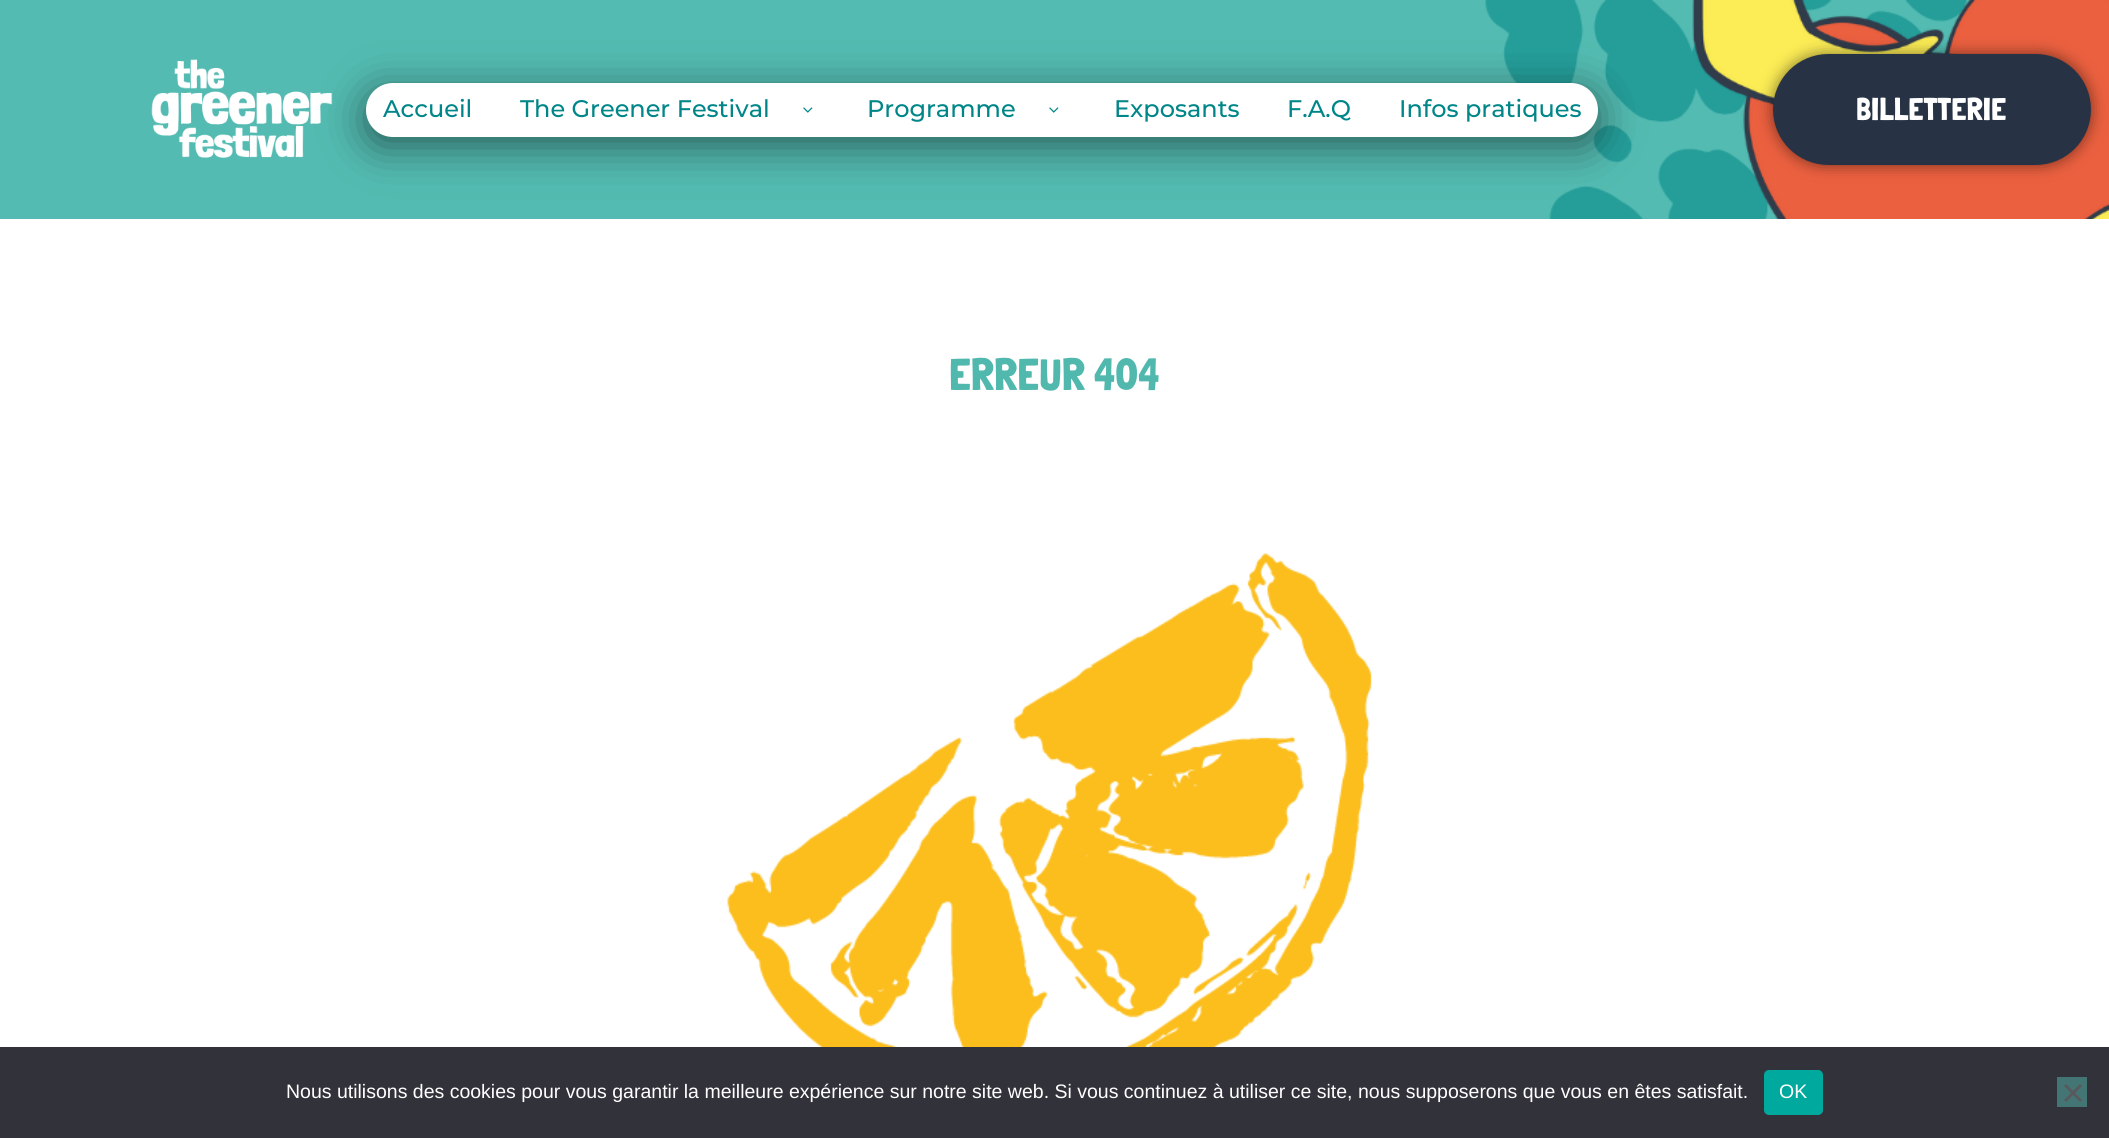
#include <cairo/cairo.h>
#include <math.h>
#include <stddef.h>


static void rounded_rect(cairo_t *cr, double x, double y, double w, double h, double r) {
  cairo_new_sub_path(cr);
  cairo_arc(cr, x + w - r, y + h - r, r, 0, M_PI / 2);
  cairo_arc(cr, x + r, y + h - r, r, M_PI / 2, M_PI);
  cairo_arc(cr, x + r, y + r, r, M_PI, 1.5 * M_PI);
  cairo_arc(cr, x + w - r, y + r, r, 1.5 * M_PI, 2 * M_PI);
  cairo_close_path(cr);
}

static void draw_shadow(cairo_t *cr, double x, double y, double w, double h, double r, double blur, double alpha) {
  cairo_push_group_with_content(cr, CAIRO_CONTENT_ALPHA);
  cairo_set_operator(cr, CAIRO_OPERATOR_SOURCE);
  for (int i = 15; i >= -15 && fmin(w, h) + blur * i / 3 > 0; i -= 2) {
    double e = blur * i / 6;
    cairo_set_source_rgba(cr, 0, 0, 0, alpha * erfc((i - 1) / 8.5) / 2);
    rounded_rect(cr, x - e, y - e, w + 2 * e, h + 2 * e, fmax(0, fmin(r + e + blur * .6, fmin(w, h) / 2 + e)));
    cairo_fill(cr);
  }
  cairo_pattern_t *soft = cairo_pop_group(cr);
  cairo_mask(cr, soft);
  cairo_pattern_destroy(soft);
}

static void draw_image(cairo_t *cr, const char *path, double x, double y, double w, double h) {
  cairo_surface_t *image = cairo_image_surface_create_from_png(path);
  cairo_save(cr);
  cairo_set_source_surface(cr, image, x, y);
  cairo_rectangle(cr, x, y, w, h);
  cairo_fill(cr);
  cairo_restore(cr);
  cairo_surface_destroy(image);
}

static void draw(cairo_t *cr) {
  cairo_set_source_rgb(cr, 1, 1, 1);
  cairo_paint(cr);
  draw_image(cr, "images/1.png", 0, 0, 2109, 219);
  draw_image(cr, "images/2.png", 151, 59, 182, 99);
  cairo_set_source_rgb(cr, 0, 0, 0);
  draw_shadow(cr, 366, 92, 1232, 54, 27, 21, 0.5);
  cairo_set_source_rgb(cr, 1, 1, 1);
  rounded_rect(cr, 366, 83, 1232, 54, 27);
  cairo_fill(cr);
  draw_image(cr, "images/3.png", 803, 107, 10, 6);
  draw_image(cr, "images/3.png", 1049, 107, 10, 6);
  cairo_set_source_rgb(cr, 0, 0, 0);
  draw_shadow(cr, 1773, 54, 318, 111, 55.5, 7.5, 0.5);
  cairo_set_source_rgb(cr, 39 / 255.0, 51 / 255.0, 69 / 255.0);
  rounded_rect(cr, 1773, 54, 318, 111, 55.5);
  cairo_fill(cr);
  draw_image(cr, "images/4.png", 727, 553, 645, 494);
  cairo_set_source_rgb(cr, 50 / 255.0, 50 / 255.0, 58 / 255.0);
  cairo_rectangle(cr, 0, 1047, 2109, 91);
  cairo_fill(cr);
  cairo_set_source_rgb(cr, 0, 169 / 255.0, 157 / 255.0);
  rounded_rect(cr, 1764, 1070, 59, 45, 5);
  cairo_fill(cr);
  cairo_set_source_rgb(cr, 66 / 255.0, 117 / 255.0, 116 / 255.0);
  cairo_rectangle(cr, 2057, 1077, 30, 30);
  cairo_fill(cr);
  cairo_set_source_rgb(cr, 89 / 255.0, 89 / 255.0, 93 / 255.0);
  cairo_new_path(cr);
  cairo_move_to(cr, 2080, 1084);
  cairo_line_to(cr, 2082, 1086);
  cairo_line_to(cr, 2066, 1102);
  cairo_line_to(cr, 2064, 1100);
  cairo_close_path(cr);
  cairo_fill(cr);
  cairo_new_path(cr);
  cairo_move_to(cr, 2064, 1086);
  cairo_line_to(cr, 2066, 1084);
  cairo_line_to(cr, 2082, 1100);
  cairo_line_to(cr, 2080, 1102);
  cairo_close_path(cr);
  cairo_fill(cr);
  cairo_select_font_face(cr, "Montserrat Medium", CAIRO_FONT_SLANT_NORMAL, CAIRO_FONT_WEIGHT_NORMAL);
  cairo_set_font_size(cr, 24);
  cairo_set_source_rgb(cr, 0, 134 / 255.0, 136 / 255.0);
  cairo_move_to(cr, 383, 117);
  cairo_show_text(cr, "Accueil");
  cairo_move_to(cr, 520, 117);
  cairo_show_text(cr, "The Greener Festival");
  cairo_move_to(cr, 867, 117);
  cairo_show_text(cr, "Programme");
  cairo_move_to(cr, 1114, 117);
  cairo_show_text(cr, "Exposants");
  cairo_move_to(cr, 1287, 117);
  cairo_show_text(cr, "F.A.Q");
  cairo_move_to(cr, 1399, 117);
  cairo_show_text(cr, "Infos pratiques");
  cairo_select_font_face(cr, "Londrina Solid", CAIRO_FONT_SLANT_NORMAL, CAIRO_FONT_WEIGHT_NORMAL);
  cairo_set_font_size(cr, 31.5);
  cairo_set_source_rgb(cr, 1, 1, 1);
  cairo_move_to(cr, 1856, 120);
  cairo_show_text(cr, "BILLETTERIE");
  cairo_set_font_size(cr, 45);
  cairo_set_source_rgb(cr, 81 / 255.0, 184 / 255.0, 174 / 255.0);
  cairo_move_to(cr, 949, 390);
  cairo_show_text(cr, "ERREUR 404");
  cairo_select_font_face(cr, "Liberation Sans", CAIRO_FONT_SLANT_NORMAL, CAIRO_FONT_WEIGHT_NORMAL);
  cairo_set_font_size(cr, 19.5);
  cairo_set_source_rgb(cr, 1, 1, 1);
  cairo_move_to(cr, 286, 1098);
  cairo_show_text(cr, "Nous utilisons des cookies pour vous garantir la meilleure expérience sur notre site web. Si vous continuez à utiliser ce site, nous supposerons que vous en êtes satisfait.");
  cairo_move_to(cr, 1779, 1098);
  cairo_show_text(cr, "OK");
}

int main(void) {
  cairo_surface_t *surface = cairo_image_surface_create(CAIRO_FORMAT_RGB24, 2109, 1138);
  cairo_t *cr = cairo_create(surface);
  cairo_font_options_t *options = cairo_font_options_create();
  cairo_font_options_set_hint_metrics(options, CAIRO_HINT_METRICS_OFF);
  cairo_font_options_set_hint_style(options, CAIRO_HINT_STYLE_NONE);
  cairo_set_font_options(cr, options);
  cairo_set_miter_limit(cr, 4);
  draw(cr);
  cairo_surface_write_to_png(surface, "out.png");
  cairo_font_options_destroy(options);
  cairo_destroy(cr);
  cairo_surface_destroy(surface);
  return 0;
}
